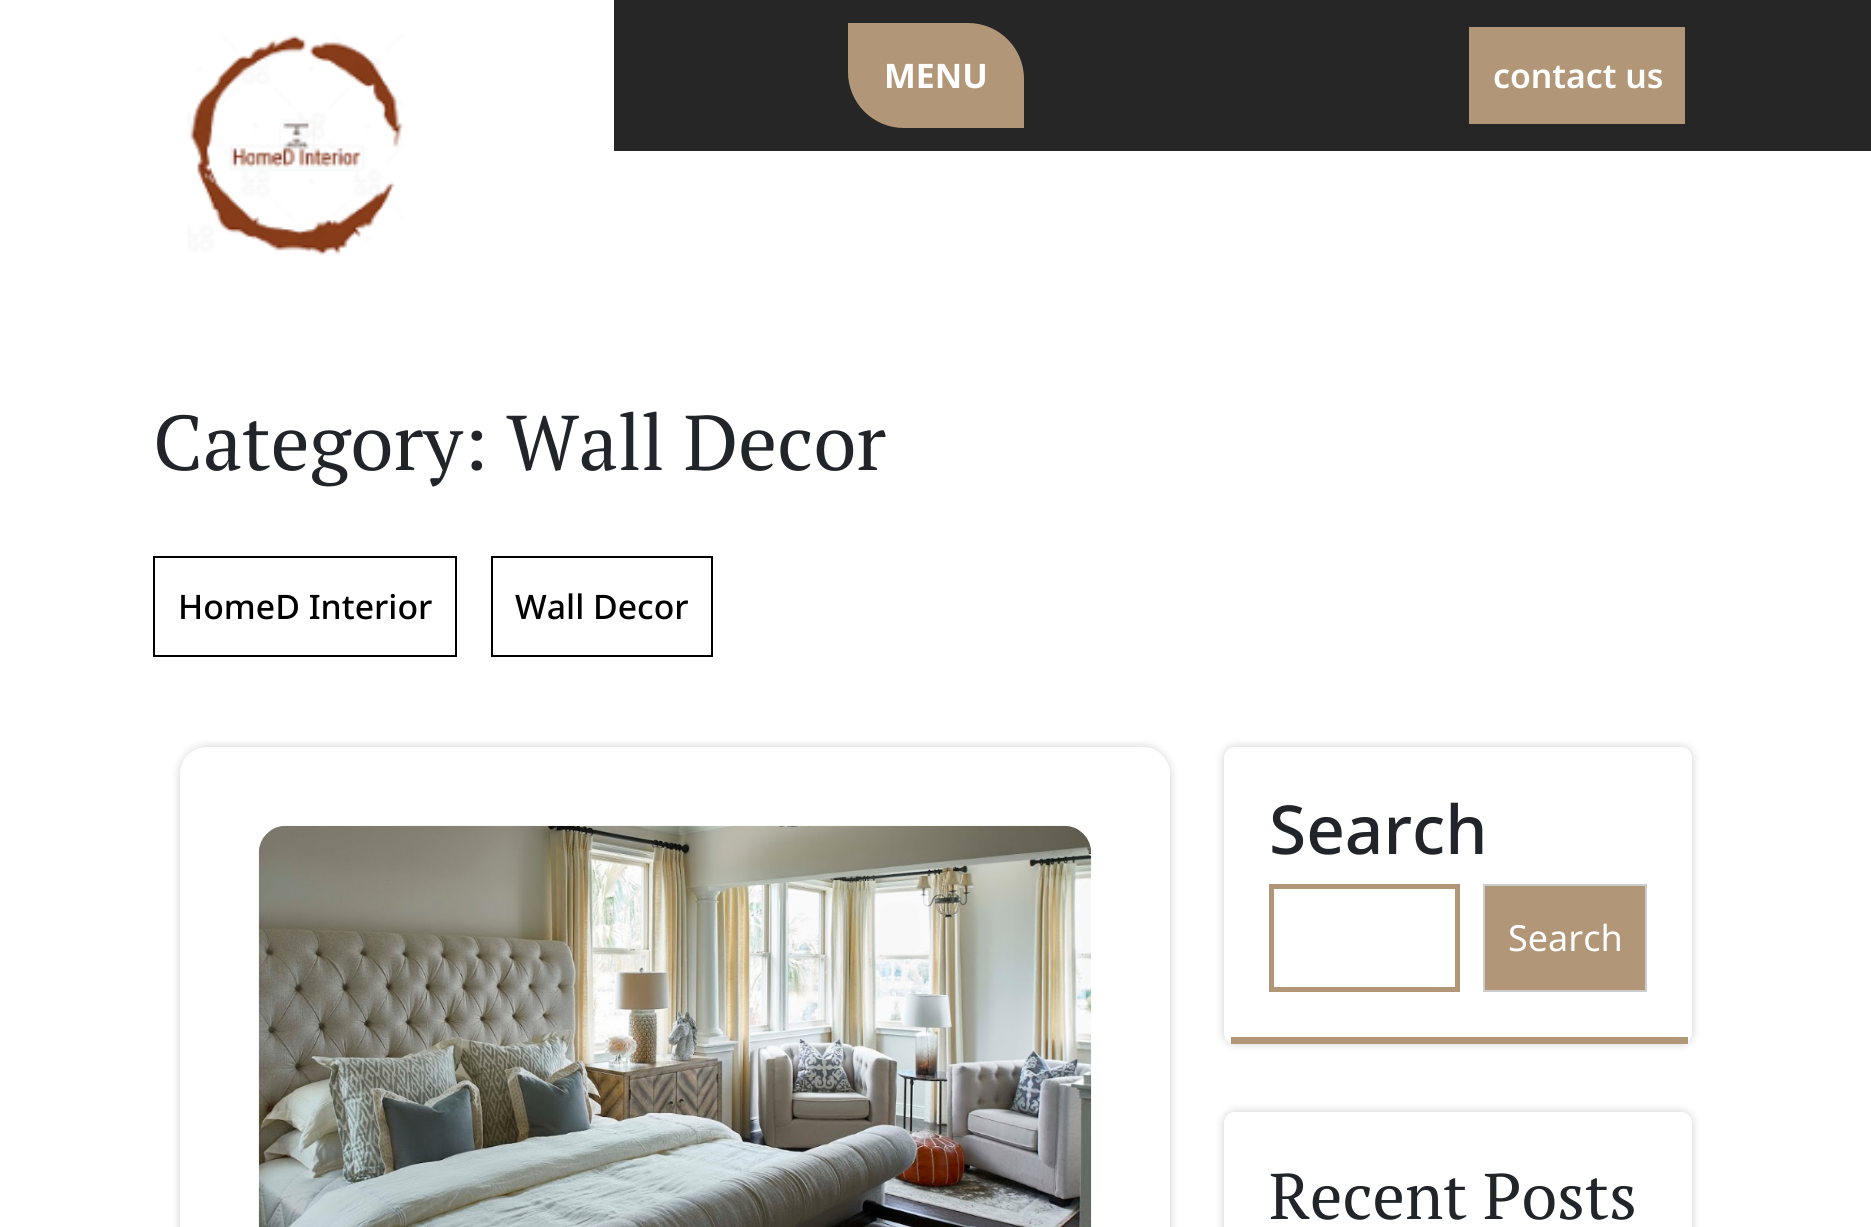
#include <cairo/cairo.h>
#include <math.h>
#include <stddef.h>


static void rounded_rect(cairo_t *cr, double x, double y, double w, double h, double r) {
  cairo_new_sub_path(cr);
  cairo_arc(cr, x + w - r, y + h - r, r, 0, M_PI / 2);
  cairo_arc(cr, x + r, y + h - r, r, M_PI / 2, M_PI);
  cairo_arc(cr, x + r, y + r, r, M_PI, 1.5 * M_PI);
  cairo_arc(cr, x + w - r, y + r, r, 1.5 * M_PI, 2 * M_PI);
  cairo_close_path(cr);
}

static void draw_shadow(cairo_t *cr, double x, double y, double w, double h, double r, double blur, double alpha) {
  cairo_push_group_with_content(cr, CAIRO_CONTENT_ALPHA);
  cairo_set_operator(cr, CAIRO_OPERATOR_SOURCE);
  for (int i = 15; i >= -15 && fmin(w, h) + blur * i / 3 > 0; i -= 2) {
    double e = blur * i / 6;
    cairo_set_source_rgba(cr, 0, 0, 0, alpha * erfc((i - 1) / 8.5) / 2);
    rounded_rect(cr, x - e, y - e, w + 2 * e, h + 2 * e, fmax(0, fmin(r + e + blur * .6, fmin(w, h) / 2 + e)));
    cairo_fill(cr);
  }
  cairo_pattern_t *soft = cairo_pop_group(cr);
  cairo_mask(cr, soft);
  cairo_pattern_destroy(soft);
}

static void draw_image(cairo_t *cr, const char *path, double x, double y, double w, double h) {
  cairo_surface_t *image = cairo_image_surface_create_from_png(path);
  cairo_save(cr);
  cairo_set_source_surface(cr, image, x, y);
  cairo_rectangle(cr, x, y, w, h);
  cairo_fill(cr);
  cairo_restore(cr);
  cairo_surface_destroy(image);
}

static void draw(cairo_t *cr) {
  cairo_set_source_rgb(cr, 1, 1, 1);
  cairo_paint(cr);
  draw_image(cr, "images/1.png", 187, 35, 217, 220);
  cairo_set_source_rgb(cr, 38 / 255.0, 38 / 255.0, 38 / 255.0);
  cairo_rectangle(cr, 614, 0, 1257, 151);
  cairo_fill(cr);
  cairo_set_source_rgb(cr, 177 / 255.0, 151 / 255.0, 119 / 255.0);
  cairo_new_path(cr);
  cairo_move_to(cr, 848, 23);
  cairo_line_to(cr, 968, 23);
  cairo_curve_to(cr, 999, 23, 1024, 48, 1024, 79);
  cairo_line_to(cr, 1024, 128);
  cairo_line_to(cr, 904, 128);
  cairo_curve_to(cr, 873, 128, 848, 103, 848, 72);
  cairo_close_path(cr);
  cairo_fill(cr);
  cairo_rectangle(cr, 1469, 27, 216, 97);
  cairo_fill(cr);
  cairo_rectangle(cr, 154, 557, 302, 99);
  cairo_set_source_rgb(cr, 0, 0, 0);
  cairo_stroke(cr);
  cairo_rectangle(cr, 492, 557, 220, 99);
  cairo_stroke(cr);
  cairo_set_source_rgb(cr, 207 / 255.0, 207 / 255.0, 207 / 255.0);
  draw_shadow(cr, 180, 747, 990, 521, 27, 4.5, 1);
  cairo_set_source_rgb(cr, 1, 1, 1);
  rounded_rect(cr, 180, 747, 990, 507, 27);
  cairo_fill(cr);
  draw_image(cr, "images/2.png", 258, 825, 834, 402);
  cairo_set_source_rgb(cr, 207 / 255.0, 207 / 255.0, 207 / 255.0);
  draw_shadow(cr, 1224, 747, 468, 297, 11, 4.5, 1);
  cairo_set_source_rgb(cr, 1, 1, 1);
  rounded_rect(cr, 1224, 747, 468, 297, 11);
  cairo_fill(cr);
  cairo_set_source_rgb(cr, 177 / 255.0, 151 / 255.0, 119 / 255.0);
  cairo_rectangle(cr, 1231, 1037, 457, 7);
  cairo_fill(cr);
  cairo_rectangle(cr, 1271.5, 886.5, 186, 103);
  cairo_set_line_width(cr, 5);
  cairo_stroke(cr);
  cairo_rectangle(cr, 1484, 885, 162, 106);
  cairo_fill_preserve(cr);
  cairo_set_source_rgb(cr, 204 / 255.0, 204 / 255.0, 204 / 255.0);
  cairo_set_line_width(cr, 2);
  cairo_stroke(cr);
  cairo_set_source_rgb(cr, 207 / 255.0, 207 / 255.0, 207 / 255.0);
  draw_shadow(cr, 1224, 1112, 468, 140, 11, 4.5, 1);
  cairo_set_source_rgb(cr, 1, 1, 1);
  rounded_rect(cr, 1224, 1112, 468, 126, 11);
  cairo_fill(cr);
  cairo_select_font_face(cr, "Noto Sans", CAIRO_FONT_SLANT_NORMAL, CAIRO_FONT_WEIGHT_BOLD);
  cairo_set_font_size(cr, 33.75);
  cairo_move_to(cr, 884, 88);
  cairo_show_text(cr, "MENU");
  cairo_select_font_face(cr, "Noto Sans SemiBold", CAIRO_FONT_SLANT_NORMAL, CAIRO_FONT_WEIGHT_NORMAL);
  cairo_move_to(cr, 1493, 88);
  cairo_show_text(cr, "contact us");
  cairo_select_font_face(cr, "PT Serif", CAIRO_FONT_SLANT_NORMAL, CAIRO_FONT_WEIGHT_NORMAL);
  cairo_set_font_size(cr, 77.5);
  cairo_set_source_rgb(cr, 33 / 255.0, 37 / 255.0, 41 / 255.0);
  cairo_move_to(cr, 153, 470);
  cairo_show_text(cr, "Category: Wall Decor");
  cairo_select_font_face(cr, "Noto Sans Medium", CAIRO_FONT_SLANT_NORMAL, CAIRO_FONT_WEIGHT_NORMAL);
  cairo_set_font_size(cr, 33.75);
  cairo_set_source_rgb(cr, 0, 0, 0);
  cairo_move_to(cr, 178, 619);
  cairo_show_text(cr, "HomeD Interior");
  cairo_move_to(cr, 515, 619);
  cairo_show_text(cr, "Wall Decor");
  cairo_set_font_size(cr, 67.5);
  cairo_set_source_rgb(cr, 33 / 255.0, 37 / 255.0, 41 / 255.0);
  cairo_move_to(cr, 1269, 854);
  cairo_show_text(cr, "Search");
  cairo_select_font_face(cr, "Noto Sans", CAIRO_FONT_SLANT_NORMAL, CAIRO_FONT_WEIGHT_NORMAL);
  cairo_set_font_size(cr, 36);
  cairo_set_source_rgb(cr, 1, 1, 1);
  cairo_move_to(cr, 1508, 951);
  cairo_show_text(cr, "Search");
  cairo_select_font_face(cr, "PT Serif", CAIRO_FONT_SLANT_NORMAL, CAIRO_FONT_WEIGHT_NORMAL);
  cairo_set_font_size(cr, 64.5);
  cairo_set_source_rgb(cr, 33 / 255.0, 37 / 255.0, 41 / 255.0);
  cairo_move_to(cr, 1269, 1219);
  cairo_show_text(cr, "Recent Posts");
}

int main(void) {
  cairo_surface_t *surface = cairo_image_surface_create(CAIRO_FORMAT_RGB24, 1871, 1227);
  cairo_t *cr = cairo_create(surface);
  cairo_font_options_t *options = cairo_font_options_create();
  cairo_font_options_set_hint_metrics(options, CAIRO_HINT_METRICS_OFF);
  cairo_font_options_set_hint_style(options, CAIRO_HINT_STYLE_NONE);
  cairo_set_font_options(cr, options);
  cairo_set_miter_limit(cr, 4);
  draw(cr);
  cairo_surface_write_to_png(surface, "out.png");
  cairo_font_options_destroy(options);
  cairo_destroy(cr);
  cairo_surface_destroy(surface);
  return 0;
}
